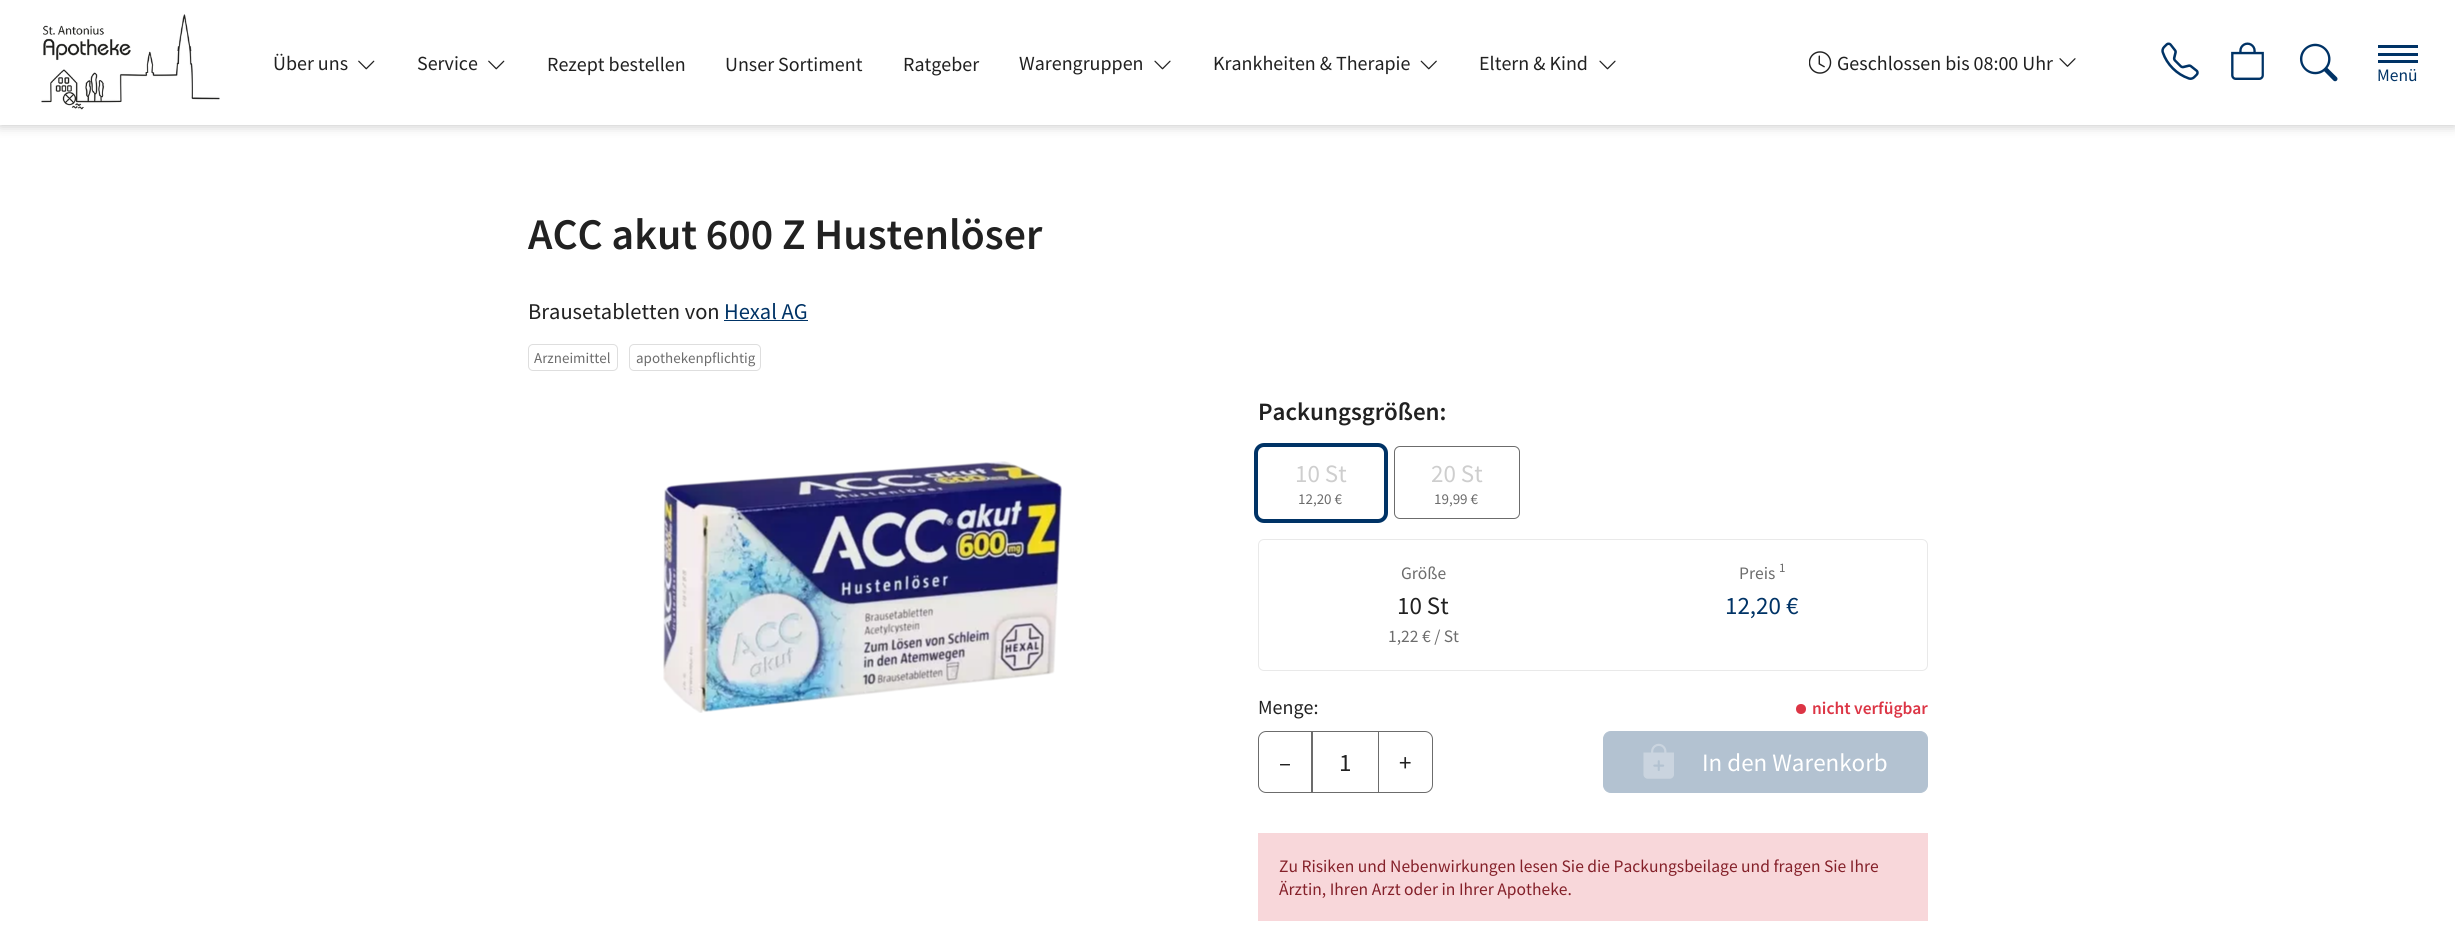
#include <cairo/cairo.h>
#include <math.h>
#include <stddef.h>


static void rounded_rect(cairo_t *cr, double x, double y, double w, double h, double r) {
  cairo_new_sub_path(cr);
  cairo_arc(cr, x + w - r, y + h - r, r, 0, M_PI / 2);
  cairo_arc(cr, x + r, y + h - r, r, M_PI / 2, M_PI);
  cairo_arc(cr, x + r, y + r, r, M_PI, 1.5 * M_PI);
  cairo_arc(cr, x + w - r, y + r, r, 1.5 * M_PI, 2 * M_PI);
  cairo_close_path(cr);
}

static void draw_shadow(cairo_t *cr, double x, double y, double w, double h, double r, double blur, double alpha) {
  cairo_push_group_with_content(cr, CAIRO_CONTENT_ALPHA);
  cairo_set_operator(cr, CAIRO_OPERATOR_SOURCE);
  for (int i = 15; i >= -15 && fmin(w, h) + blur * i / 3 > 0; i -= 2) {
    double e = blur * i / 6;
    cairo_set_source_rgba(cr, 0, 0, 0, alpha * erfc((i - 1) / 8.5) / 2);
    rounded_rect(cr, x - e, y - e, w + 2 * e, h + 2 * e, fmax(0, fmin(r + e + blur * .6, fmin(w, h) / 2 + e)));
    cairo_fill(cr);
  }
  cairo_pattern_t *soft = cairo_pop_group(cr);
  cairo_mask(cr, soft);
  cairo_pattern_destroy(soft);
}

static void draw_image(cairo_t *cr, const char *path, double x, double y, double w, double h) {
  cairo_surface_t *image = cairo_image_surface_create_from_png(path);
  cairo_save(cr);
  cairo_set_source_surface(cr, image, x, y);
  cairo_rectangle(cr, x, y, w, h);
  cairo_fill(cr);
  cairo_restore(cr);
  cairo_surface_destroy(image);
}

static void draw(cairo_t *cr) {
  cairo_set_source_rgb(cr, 1, 1, 1);
  cairo_paint(cr);
  cairo_set_source_rgb(cr, 0, 0, 0);
  draw_shadow(cr, 0, 0, 2455, 125, 0, 6, 0.25);
  cairo_set_source_rgb(cr, 1, 1, 1);
  cairo_rectangle(cr, 0, 0, 2455, 125);
  cairo_fill(cr);
  draw_image(cr, "images/1.png", 41, 14, 179, 96);
  draw_image(cr, "images/2.png", 358, 60, 17, 10);
  draw_image(cr, "images/2.png", 488, 60, 17, 10);
  draw_image(cr, "images/3.png", 1154, 60, 17, 10);
  draw_image(cr, "images/4.png", 1420, 60, 17, 10);
  draw_image(cr, "images/3.png", 1599, 60, 17, 10);
  draw_image(cr, "images/5.png", 1809, 51, 23, 23);
  draw_image(cr, "images/6.png", 2059, 58, 17, 9);
  draw_image(cr, "images/7.png", 2161, 42, 38, 38);
  draw_image(cr, "images/8.png", 2231, 42, 33, 38);
  draw_image(cr, "images/9.png", 2299, 43, 39, 39);
  cairo_set_source_rgb(cr, 0, 51 / 255.0, 102 / 255.0);
  cairo_rectangle(cr, 2378, 53, 40, 3);
  cairo_fill(cr);
  cairo_rectangle(cr, 2378, 45, 40, 3);
  cairo_fill(cr);
  cairo_rectangle(cr, 2378, 60, 40, 3);
  cairo_fill(cr);
  cairo_rectangle(cr, 724, 320, 84, 1);
  cairo_fill(cr);
  rounded_rect(cr, 528.5, 344.5, 89, 26, 4.5);
  cairo_set_source_rgb(cr, 222 / 255.0, 222 / 255.0, 222 / 255.0);
  cairo_set_line_width(cr, 1);
  cairo_stroke(cr);
  rounded_rect(cr, 629.5, 344.5, 131, 26, 4.5);
  cairo_stroke(cr);
  draw_image(cr, "images/10.png", 663, 461, 399, 252);
  rounded_rect(cr, 1256, 445, 130, 76, 8);
  cairo_set_source_rgb(cr, 0, 51 / 255.0, 102 / 255.0);
  cairo_set_line_width(cr, 4);
  cairo_stroke(cr);
  rounded_rect(cr, 1394.5, 446.5, 125, 72, 5.5);
  cairo_set_source_rgb(cr, 108 / 255.0, 108 / 255.0, 108 / 255.0);
  cairo_set_line_width(cr, 1);
  cairo_stroke(cr);
  rounded_rect(cr, 1258.5, 539.5, 669, 131, 5.5);
  cairo_set_source_rgb(cr, 233 / 255.0, 233 / 255.0, 233 / 255.0);
  cairo_stroke(cr);
  cairo_set_source_rgb(cr, 220 / 255.0, 53 / 255.0, 69 / 255.0);
  cairo_arc(cr, 1801, 709, 5, 0, 2 * M_PI);
  cairo_fill(cr);
  cairo_rectangle(cr, 1311.5, 731.5, 67, 61);
  cairo_set_source_rgb(cr, 108 / 255.0, 108 / 255.0, 108 / 255.0);
  cairo_stroke(cr);
  cairo_new_path(cr);
  cairo_move_to(cr, 1266, 731.5);
  cairo_line_to(cr, 1312.5, 731.5);
  cairo_line_to(cr, 1312.5, 792.5);
  cairo_line_to(cr, 1266, 792.5);
  cairo_curve_to(cr, 1262, 792.5, 1258.5, 789, 1258.5, 785);
  cairo_line_to(cr, 1258.5, 739);
  cairo_curve_to(cr, 1258.5, 735, 1262, 731.5, 1266, 731.5);
  cairo_close_path(cr);
  cairo_stroke(cr);
  cairo_new_path(cr);
  cairo_move_to(cr, 1378.5, 731.5);
  cairo_line_to(cr, 1425, 731.5);
  cairo_curve_to(cr, 1429, 731.5, 1432.5, 735, 1432.5, 739);
  cairo_line_to(cr, 1432.5, 785);
  cairo_curve_to(cr, 1432.5, 789, 1429, 792.5, 1425, 792.5);
  cairo_line_to(cr, 1378.5, 792.5);
  cairo_close_path(cr);
  cairo_stroke(cr);
  cairo_set_source_rgb(cr, 179 / 255.0, 194 / 255.0, 209 / 255.0);
  rounded_rect(cr, 1603.5, 731.5, 324, 61, 7.5);
  cairo_fill_preserve(cr);
  cairo_stroke(cr);
  draw_image(cr, "images/11.png", 1643, 743, 31, 36);
  cairo_set_source_rgb(cr, 248 / 255.0, 215 / 255.0, 218 / 255.0);
  cairo_rectangle(cr, 1258, 833, 670, 88);
  cairo_fill(cr);
  cairo_select_font_face(cr, "Source Sans Pro", CAIRO_FONT_SLANT_NORMAL, CAIRO_FONT_WEIGHT_NORMAL);
  cairo_set_font_size(cr, 20);
  cairo_set_source_rgb(cr, 33 / 255.0, 33 / 255.0, 33 / 255.0);
  cairo_move_to(cr, 273, 70);
  cairo_show_text(cr, "Über uns");
  cairo_move_to(cr, 417, 70);
  cairo_show_text(cr, "Service");
  cairo_move_to(cr, 547, 71);
  cairo_show_text(cr, "Rezept bestellen");
  cairo_move_to(cr, 725, 71);
  cairo_show_text(cr, "Unser Sortiment");
  cairo_move_to(cr, 903, 71);
  cairo_show_text(cr, "Ratgeber");
  cairo_move_to(cr, 1019, 70);
  cairo_show_text(cr, "Warengruppen");
  cairo_move_to(cr, 1213, 70);
  cairo_show_text(cr, "Krankheiten & Therapie");
  cairo_move_to(cr, 1479, 70);
  cairo_show_text(cr, "Eltern & Kind");
  cairo_move_to(cr, 1837, 70);
  cairo_show_text(cr, "Geschlossen bis 08:00 Uhr");
  cairo_set_font_size(cr, 17.5);
  cairo_set_source_rgb(cr, 0, 51 / 255.0, 102 / 255.0);
  cairo_move_to(cr, 2377, 81);
  cairo_show_text(cr, "Menü");
  cairo_select_font_face(cr, "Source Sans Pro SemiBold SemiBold", CAIRO_FONT_SLANT_NORMAL, CAIRO_FONT_WEIGHT_NORMAL);
  cairo_set_font_size(cr, 43.75);
  cairo_set_source_rgb(cr, 33 / 255.0, 33 / 255.0, 33 / 255.0);
  cairo_move_to(cr, 528, 249);
  cairo_show_text(cr, "ACC akut 600 Z Hustenlöser");
  cairo_select_font_face(cr, "Source Sans Pro", CAIRO_FONT_SLANT_NORMAL, CAIRO_FONT_WEIGHT_NORMAL);
  cairo_set_font_size(cr, 22.5);
  cairo_move_to(cr, 528, 319);
  cairo_show_text(cr, "Brausetabletten von");
  cairo_set_source_rgb(cr, 0, 51 / 255.0, 102 / 255.0);
  cairo_move_to(cr, 724, 319);
  cairo_show_text(cr, "Hexal AG");
  cairo_set_font_size(cr, 15);
  cairo_set_source_rgb(cr, 108 / 255.0, 108 / 255.0, 108 / 255.0);
  cairo_move_to(cr, 534, 363);
  cairo_show_text(cr, "Arzneimittel");
  cairo_move_to(cr, 636, 363);
  cairo_show_text(cr, "apothekenpflichtig");
  cairo_select_font_face(cr, "Source Sans Pro SemiBold SemiBold", CAIRO_FONT_SLANT_NORMAL, CAIRO_FONT_WEIGHT_NORMAL);
  cairo_set_font_size(cr, 25);
  cairo_set_source_rgb(cr, 33 / 255.0, 33 / 255.0, 33 / 255.0);
  cairo_move_to(cr, 1258, 420);
  cairo_show_text(cr, "Packungsgrößen:");
  cairo_select_font_face(cr, "Source Sans Pro", CAIRO_FONT_SLANT_NORMAL, CAIRO_FONT_WEIGHT_NORMAL);
  cairo_set_source_rgb(cr, 206 / 255.0, 206 / 255.0, 206 / 255.0);
  cairo_move_to(cr, 1295, 482);
  cairo_show_text(cr, "10 St");
  cairo_set_font_size(cr, 15);
  cairo_set_source_rgb(cr, 108 / 255.0, 108 / 255.0, 108 / 255.0);
  cairo_move_to(cr, 1298, 504);
  cairo_show_text(cr, "12,20 €");
  cairo_set_font_size(cr, 25);
  cairo_set_source_rgb(cr, 206 / 255.0, 206 / 255.0, 206 / 255.0);
  cairo_move_to(cr, 1431, 482);
  cairo_show_text(cr, "20 St");
  cairo_set_font_size(cr, 15);
  cairo_set_source_rgb(cr, 108 / 255.0, 108 / 255.0, 108 / 255.0);
  cairo_move_to(cr, 1434, 504);
  cairo_show_text(cr, "19,99 €");
  cairo_set_font_size(cr, 17.5);
  cairo_move_to(cr, 1401, 579);
  cairo_show_text(cr, "Größe");
  cairo_set_font_size(cr, 25);
  cairo_set_source_rgb(cr, 33 / 255.0, 33 / 255.0, 33 / 255.0);
  cairo_move_to(cr, 1397, 614);
  cairo_show_text(cr, "10 St");
  cairo_set_font_size(cr, 17.5);
  cairo_set_source_rgb(cr, 108 / 255.0, 108 / 255.0, 108 / 255.0);
  cairo_move_to(cr, 1388, 642);
  cairo_show_text(cr, "1,22 € / St");
  cairo_move_to(cr, 1739, 579);
  cairo_show_text(cr, "Preis");
  cairo_set_font_size(cr, 13);
  cairo_move_to(cr, 1779, 572);
  cairo_show_text(cr, "1");
  cairo_set_font_size(cr, 25);
  cairo_set_source_rgb(cr, 0, 51 / 255.0, 102 / 255.0);
  cairo_move_to(cr, 1725, 614);
  cairo_show_text(cr, "12,20 €");
  cairo_set_font_size(cr, 20);
  cairo_set_source_rgb(cr, 33 / 255.0, 33 / 255.0, 33 / 255.0);
  cairo_move_to(cr, 1258, 714);
  cairo_show_text(cr, "Menge:");
  cairo_select_font_face(cr, "Source Sans Pro SemiBold SemiBold", CAIRO_FONT_SLANT_NORMAL, CAIRO_FONT_WEIGHT_NORMAL);
  cairo_set_font_size(cr, 17.5);
  cairo_set_source_rgb(cr, 220 / 255.0, 53 / 255.0, 69 / 255.0);
  cairo_move_to(cr, 1812, 714);
  cairo_show_text(cr, "nicht verfügbar");
  cairo_select_font_face(cr, "Source Sans Pro", CAIRO_FONT_SLANT_NORMAL, CAIRO_FONT_WEIGHT_NORMAL);
  cairo_set_font_size(cr, 25);
  cairo_set_source_rgb(cr, 33 / 255.0, 33 / 255.0, 33 / 255.0);
  cairo_move_to(cr, 1279, 771);
  cairo_show_text(cr, "–");
  cairo_move_to(cr, 1339, 771);
  cairo_show_text(cr, "1");
  cairo_move_to(cr, 1399, 771);
  cairo_show_text(cr, "+");
  cairo_set_source_rgb(cr, 1, 1, 1);
  cairo_move_to(cr, 1702, 771);
  cairo_show_text(cr, "In den Warenkorb");
  cairo_set_font_size(cr, 17.5);
  cairo_set_source_rgb(cr, 132 / 255.0, 32 / 255.0, 41 / 255.0);
  cairo_move_to(cr, 1279, 872);
  cairo_show_text(cr, "Zu Risiken und Nebenwirkungen lesen Sie die Packungsbeilage und fragen Sie Ihre");
  cairo_move_to(cr, 1279, 895);
  cairo_show_text(cr, "Ärztin, Ihren Arzt oder in Ihrer Apotheke.");
}

int main(void) {
  cairo_surface_t *surface = cairo_image_surface_create(CAIRO_FORMAT_RGB24, 2455, 927);
  cairo_t *cr = cairo_create(surface);
  cairo_font_options_t *options = cairo_font_options_create();
  cairo_font_options_set_hint_metrics(options, CAIRO_HINT_METRICS_OFF);
  cairo_font_options_set_hint_style(options, CAIRO_HINT_STYLE_NONE);
  cairo_set_font_options(cr, options);
  cairo_set_miter_limit(cr, 4);
  draw(cr);
  cairo_surface_write_to_png(surface, "out.png");
  cairo_font_options_destroy(options);
  cairo_destroy(cr);
  cairo_surface_destroy(surface);
  return 0;
}
